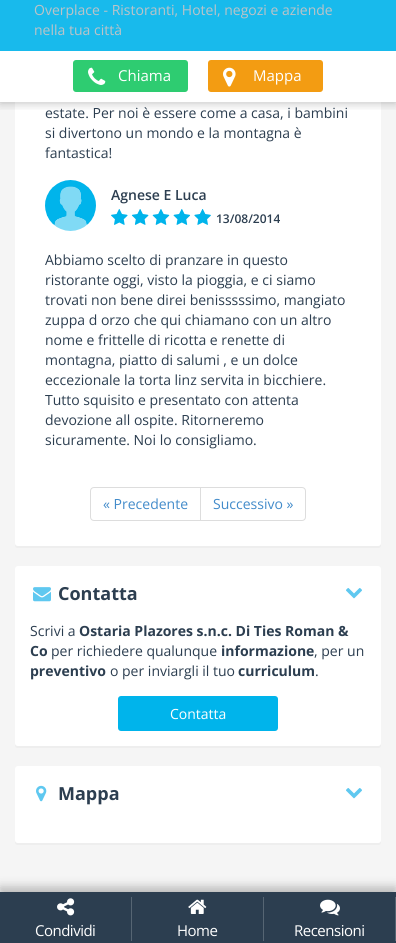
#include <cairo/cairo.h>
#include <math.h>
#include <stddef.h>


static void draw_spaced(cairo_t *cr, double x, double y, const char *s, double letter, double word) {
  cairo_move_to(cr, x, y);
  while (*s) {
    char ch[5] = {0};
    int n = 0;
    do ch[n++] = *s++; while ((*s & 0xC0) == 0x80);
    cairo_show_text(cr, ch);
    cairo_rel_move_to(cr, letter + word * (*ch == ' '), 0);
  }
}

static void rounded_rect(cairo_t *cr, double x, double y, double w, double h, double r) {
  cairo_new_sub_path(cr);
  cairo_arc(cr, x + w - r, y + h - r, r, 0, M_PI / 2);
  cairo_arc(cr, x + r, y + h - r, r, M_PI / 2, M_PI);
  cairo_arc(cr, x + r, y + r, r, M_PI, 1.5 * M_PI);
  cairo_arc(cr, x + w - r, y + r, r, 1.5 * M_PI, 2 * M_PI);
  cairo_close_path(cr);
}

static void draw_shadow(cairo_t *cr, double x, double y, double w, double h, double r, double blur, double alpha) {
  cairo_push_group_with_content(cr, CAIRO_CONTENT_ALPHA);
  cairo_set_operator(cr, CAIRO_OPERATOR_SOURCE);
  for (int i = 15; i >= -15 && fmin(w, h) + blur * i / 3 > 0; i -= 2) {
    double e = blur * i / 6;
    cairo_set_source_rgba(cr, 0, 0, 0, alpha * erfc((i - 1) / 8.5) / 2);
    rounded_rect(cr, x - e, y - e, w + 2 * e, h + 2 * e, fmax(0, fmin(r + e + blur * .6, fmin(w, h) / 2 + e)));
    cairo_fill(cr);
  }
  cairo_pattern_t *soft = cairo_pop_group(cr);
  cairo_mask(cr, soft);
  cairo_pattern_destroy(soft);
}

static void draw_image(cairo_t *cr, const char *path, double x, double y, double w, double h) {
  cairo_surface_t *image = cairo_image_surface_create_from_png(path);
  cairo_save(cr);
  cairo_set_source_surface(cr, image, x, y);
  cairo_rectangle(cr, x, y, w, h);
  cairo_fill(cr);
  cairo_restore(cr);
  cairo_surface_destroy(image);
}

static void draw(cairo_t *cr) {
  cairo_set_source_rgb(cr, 245 / 255.0, 245 / 255.0, 245 / 255.0);
  cairo_paint(cr);
  cairo_set_source_rgb(cr, 238 / 255.0, 238 / 255.0, 238 / 255.0);
  cairo_new_path(cr);
  cairo_move_to(cr, 15, 543);
  cairo_line_to(cr, 15, 545);
  cairo_curve_to(cr, 15, 547, 16, 548, 18, 548);
  cairo_line_to(cr, 378, 548);
  cairo_curve_to(cr, 380, 548, 381, 547, 381, 545);
  cairo_line_to(cr, 381, 543);
  cairo_curve_to(cr, 381, 545, 380, 546, 378, 546);
  cairo_line_to(cr, 18, 546);
  cairo_curve_to(cr, 16, 546, 15, 545, 15, 543);
  cairo_close_path(cr);
  cairo_fill(cr);
  cairo_set_source_rgb(cr, 1, 1, 1);
  rounded_rect(cr, 15, -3, 366, 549, 3);
  cairo_fill(cr);
  cairo_rectangle(cr, 0, 51, 396, 51);
  cairo_fill(cr);
  cairo_save(cr);
  cairo_rectangle(cr, 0, 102, 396, 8);
  cairo_clip(cr);
  cairo_set_source_rgb(cr, 0, 0, 0);
  draw_shadow(cr, 0, 19, 396, 84, 0, 5, 0.25);
  cairo_restore(cr);
  cairo_set_source_rgb(cr, 24 / 255.0, 186 / 255.0, 236 / 255.0);
  cairo_rectangle(cr, 0, 0, 396, 51);
  cairo_fill(cr);
  cairo_set_source_rgb(cr, 46 / 255.0, 204 / 255.0, 113 / 255.0);
  rounded_rect(cr, 73, 60, 115, 32, 3);
  cairo_fill(cr);
  draw_image(cr, "images/1.png", 88, 67, 18, 18);
  cairo_set_source_rgb(cr, 243 / 255.0, 156 / 255.0, 18 / 255.0);
  rounded_rect(cr, 208, 60, 115, 32, 3);
  cairo_fill(cr);
  draw_image(cr, "images/2.png", 223, 67, 13, 20);
  draw_image(cr, "images/3.png", 45, 180, 51, 51);
  draw_image(cr, "images/4.png", 111, 209, 100, 16);
  cairo_new_path(cr);
  cairo_move_to(cr, 94, 487.5);
  cairo_line_to(cr, 200.5, 487.5);
  cairo_line_to(cr, 200.5, 520.5);
  cairo_line_to(cr, 94, 520.5);
  cairo_curve_to(cr, 92, 520.5, 90.5, 519, 90.5, 517);
  cairo_line_to(cr, 90.5, 491);
  cairo_curve_to(cr, 90.5, 489, 92, 487.5, 94, 487.5);
  cairo_close_path(cr);
  cairo_set_source_rgb(cr, 221 / 255.0, 221 / 255.0, 221 / 255.0);
  cairo_set_line_width(cr, 1);
  cairo_stroke(cr);
  cairo_set_source_rgb(cr, 1, 1, 1);
  cairo_new_path(cr);
  cairo_move_to(cr, 200.5, 487.5);
  cairo_line_to(cr, 302, 487.5);
  cairo_curve_to(cr, 304, 487.5, 305.5, 489, 305.5, 491);
  cairo_line_to(cr, 305.5, 517);
  cairo_curve_to(cr, 305.5, 519, 304, 520.5, 302, 520.5);
  cairo_line_to(cr, 200.5, 520.5);
  cairo_close_path(cr);
  cairo_fill_preserve(cr);
  cairo_set_source_rgb(cr, 221 / 255.0, 221 / 255.0, 221 / 255.0);
  cairo_stroke(cr);
  cairo_set_source_rgb(cr, 238 / 255.0, 238 / 255.0, 238 / 255.0);
  cairo_new_path(cr);
  cairo_move_to(cr, 15, 743);
  cairo_line_to(cr, 15, 745);
  cairo_curve_to(cr, 15, 747, 16, 748, 18, 748);
  cairo_line_to(cr, 378, 748);
  cairo_curve_to(cr, 380, 748, 381, 747, 381, 745);
  cairo_line_to(cr, 381, 743);
  cairo_curve_to(cr, 381, 745, 380, 746, 378, 746);
  cairo_line_to(cr, 18, 746);
  cairo_curve_to(cr, 16, 746, 15, 745, 15, 743);
  cairo_close_path(cr);
  cairo_fill(cr);
  cairo_set_source_rgb(cr, 1, 1, 1);
  rounded_rect(cr, 15, 566, 366, 180, 3);
  cairo_fill(cr);
  draw_image(cr, "images/5.png", 33, 587, 18, 15);
  draw_image(cr, "images/6.png", 346, 588, 16, 11);
  cairo_set_source_rgb(cr, 0, 180 / 255.0, 235 / 255.0);
  rounded_rect(cr, 118, 696, 160, 35, 3);
  cairo_fill(cr);
  cairo_set_source_rgb(cr, 238 / 255.0, 238 / 255.0, 238 / 255.0);
  cairo_new_path(cr);
  cairo_move_to(cr, 15, 840);
  cairo_line_to(cr, 15, 842);
  cairo_curve_to(cr, 15, 844, 16, 845, 18, 845);
  cairo_line_to(cr, 378, 845);
  cairo_curve_to(cr, 380, 845, 381, 844, 381, 842);
  cairo_line_to(cr, 381, 840);
  cairo_curve_to(cr, 381, 842, 380, 843, 378, 843);
  cairo_line_to(cr, 18, 843);
  cairo_curve_to(cr, 16, 843, 15, 842, 15, 840);
  cairo_close_path(cr);
  cairo_fill(cr);
  cairo_set_source_rgb(cr, 1, 1, 1);
  rounded_rect(cr, 15, 766, 366, 77, 3);
  cairo_fill(cr);
  draw_image(cr, "images/7.png", 36, 785, 11, 17);
  draw_image(cr, "images/6.png", 346, 788, 16, 11);
  cairo_set_source_rgb(cr, 0, 0, 0);
  draw_shadow(cr, 0, 887, 396, 51, 0, 5, 0.25);
  cairo_set_source_rgb(cr, 44 / 255.0, 62 / 255.0, 80 / 255.0);
  cairo_rectangle(cr, 0, 892, 396, 51);
  cairo_fill(cr);
  cairo_set_source_rgb(cr, 86 / 255.0, 101 / 255.0, 115 / 255.0);
  cairo_rectangle(cr, 131, 897, 1, 44);
  cairo_fill(cr);
  draw_image(cr, "images/8.png", 57, 898, 18, 18);
  cairo_rectangle(cr, 263, 897, 1, 44);
  cairo_fill(cr);
  draw_image(cr, "images/9.png", 188, 899, 19, 15);
  cairo_rectangle(cr, 395, 897, 1, 44);
  cairo_fill(cr);
  draw_image(cr, "images/10.png", 320, 899, 20, 17);
  cairo_select_font_face(cr, "Open Sans", CAIRO_FONT_SLANT_NORMAL, CAIRO_FONT_WEIGHT_NORMAL);
  cairo_set_font_size(cr, 14);
  cairo_set_source_rgb(cr, 189 / 255.0, 195 / 255.0, 199 / 255.0);
  cairo_move_to(cr, 34, 15);
  cairo_show_text(cr, "Overplace - Ristoranti, Hotel, negozi e aziende");
  cairo_move_to(cr, 34, 35);
  cairo_show_text(cr, "nella tua città");
  cairo_set_font_size(cr, 15);
  cairo_set_source_rgb(cr, 1, 1, 1);
  cairo_move_to(cr, 118, 81);
  cairo_show_text(cr, "Chiama");
  cairo_move_to(cr, 253, 81);
  cairo_show_text(cr, "Mappa");
  cairo_set_font_size(cr, 14);
  cairo_set_source_rgb(cr, 44 / 255.0, 62 / 255.0, 80 / 255.0);
  cairo_move_to(cr, 45, 118);
  cairo_show_text(cr, "estate. Per noi è essere come a casa, i bambini");
  cairo_move_to(cr, 45, 138);
  cairo_show_text(cr, "si divertono un mondo e la montagna è");
  cairo_move_to(cr, 45, 158);
  cairo_show_text(cr, "fantastica!");
  cairo_select_font_face(cr, "Open Sans SemiBold", CAIRO_FONT_SLANT_NORMAL, CAIRO_FONT_WEIGHT_NORMAL);
  cairo_move_to(cr, 111, 200);
  cairo_show_text(cr, "Agnese E Luca");
  cairo_set_font_size(cr, 12);
  cairo_move_to(cr, 216, 223);
  cairo_show_text(cr, "13/08/2014");
  cairo_select_font_face(cr, "Open Sans", CAIRO_FONT_SLANT_NORMAL, CAIRO_FONT_WEIGHT_NORMAL);
  cairo_set_font_size(cr, 14);
  cairo_move_to(cr, 45, 265);
  cairo_show_text(cr, "Abbiamo scelto di pranzare in questo");
  cairo_move_to(cr, 45, 285);
  cairo_show_text(cr, "ristorante oggi, visto la pioggia, e ci siamo");
  cairo_move_to(cr, 45, 305);
  cairo_show_text(cr, "trovati non bene direi benisssssimo, mangiato");
  cairo_move_to(cr, 45, 325);
  cairo_show_text(cr, "zuppa d orzo che qui chiamano con un altro");
  cairo_move_to(cr, 45, 345);
  cairo_show_text(cr, "nome e frittelle di ricotta e renette di");
  cairo_move_to(cr, 45, 365);
  cairo_show_text(cr, "montagna, piatto di salumi , e un dolce");
  cairo_move_to(cr, 45, 385);
  cairo_show_text(cr, "eccezionale la torta linz servita in bicchiere.");
  cairo_move_to(cr, 45, 405);
  cairo_show_text(cr, "Tutto squisito e presentato con attenta");
  cairo_move_to(cr, 45, 425);
  cairo_show_text(cr, "devozione all ospite. Ritorneremo");
  cairo_move_to(cr, 45, 445);
  cairo_show_text(cr, "sicuramente. Noi lo consigliamo.");
  cairo_set_source_rgb(cr, 66 / 255.0, 139 / 255.0, 202 / 255.0);
  cairo_move_to(cr, 103, 509);
  cairo_show_text(cr, "« Precedente");
  cairo_move_to(cr, 213, 509);
  cairo_show_text(cr, "Successivo »");
  cairo_select_font_face(cr, "Open Sans", CAIRO_FONT_SLANT_NORMAL, CAIRO_FONT_WEIGHT_BOLD);
  cairo_set_font_size(cr, 18);
  cairo_set_source_rgb(cr, 44 / 255.0, 62 / 255.0, 80 / 255.0);
  cairo_move_to(cr, 58, 600);
  cairo_show_text(cr, "Contatta");
  cairo_select_font_face(cr, "Open Sans", CAIRO_FONT_SLANT_NORMAL, CAIRO_FONT_WEIGHT_NORMAL);
  cairo_set_font_size(cr, 14);
  cairo_move_to(cr, 30, 636);
  cairo_show_text(cr, "Scrivi a");
  cairo_select_font_face(cr, "Open Sans", CAIRO_FONT_SLANT_NORMAL, CAIRO_FONT_WEIGHT_BOLD);
  cairo_move_to(cr, 79, 636);
  cairo_show_text(cr, "Ostaria Plazores s.n.c. Di Ties Roman &");
  cairo_move_to(cr, 30, 656);
  cairo_show_text(cr, "Co");
  cairo_select_font_face(cr, "Open Sans", CAIRO_FONT_SLANT_NORMAL, CAIRO_FONT_WEIGHT_NORMAL);
  cairo_move_to(cr, 51, 656);
  cairo_show_text(cr, "per richiedere qualunque");
  cairo_select_font_face(cr, "Open Sans", CAIRO_FONT_SLANT_NORMAL, CAIRO_FONT_WEIGHT_BOLD);
  cairo_move_to(cr, 221, 656);
  cairo_show_text(cr, "informazione");
  cairo_select_font_face(cr, "Open Sans", CAIRO_FONT_SLANT_NORMAL, CAIRO_FONT_WEIGHT_NORMAL);
  cairo_move_to(cr, 314, 656);
  cairo_show_text(cr, ", per un");
  cairo_select_font_face(cr, "Open Sans", CAIRO_FONT_SLANT_NORMAL, CAIRO_FONT_WEIGHT_BOLD);
  cairo_move_to(cr, 30, 676);
  cairo_show_text(cr, "preventivo");
  cairo_select_font_face(cr, "Open Sans", CAIRO_FONT_SLANT_NORMAL, CAIRO_FONT_WEIGHT_NORMAL);
  cairo_move_to(cr, 110, 676);
  cairo_show_text(cr, "o per inviargli il tuo");
  cairo_select_font_face(cr, "Open Sans", CAIRO_FONT_SLANT_NORMAL, CAIRO_FONT_WEIGHT_BOLD);
  cairo_move_to(cr, 238, 676);
  cairo_show_text(cr, "curriculum");
  cairo_select_font_face(cr, "Open Sans", CAIRO_FONT_SLANT_NORMAL, CAIRO_FONT_WEIGHT_NORMAL);
  cairo_move_to(cr, 315, 676);
  cairo_show_text(cr, ".");
  cairo_set_source_rgb(cr, 1, 1, 1);
  cairo_move_to(cr, 170, 719);
  cairo_show_text(cr, "Contatta");
  cairo_select_font_face(cr, "Open Sans", CAIRO_FONT_SLANT_NORMAL, CAIRO_FONT_WEIGHT_BOLD);
  cairo_set_font_size(cr, 18);
  cairo_set_source_rgb(cr, 44 / 255.0, 62 / 255.0, 80 / 255.0);
  cairo_move_to(cr, 58, 800);
  cairo_show_text(cr, "Mappa");
  cairo_select_font_face(cr, "Open Sans", CAIRO_FONT_SLANT_NORMAL, CAIRO_FONT_WEIGHT_NORMAL);
  cairo_set_font_size(cr, 15);
  cairo_set_source_rgb(cr, 1, 1, 1);
  draw_spaced(cr, 35, 936, "Condividi", -0.5, 0);
  draw_spaced(cr, 177, 936, "Home", -0.5, 0);
  draw_spaced(cr, 294, 936, "Recensioni", -0.5, 0);
}

int main(void) {
  cairo_surface_t *surface = cairo_image_surface_create(CAIRO_FORMAT_RGB24, 396, 943);
  cairo_t *cr = cairo_create(surface);
  cairo_font_options_t *options = cairo_font_options_create();
  cairo_font_options_set_hint_metrics(options, CAIRO_HINT_METRICS_OFF);
  cairo_font_options_set_hint_style(options, CAIRO_HINT_STYLE_NONE);
  cairo_set_font_options(cr, options);
  cairo_set_miter_limit(cr, 4);
  draw(cr);
  cairo_surface_write_to_png(surface, "out.png");
  cairo_font_options_destroy(options);
  cairo_destroy(cr);
  cairo_surface_destroy(surface);
  return 0;
}
